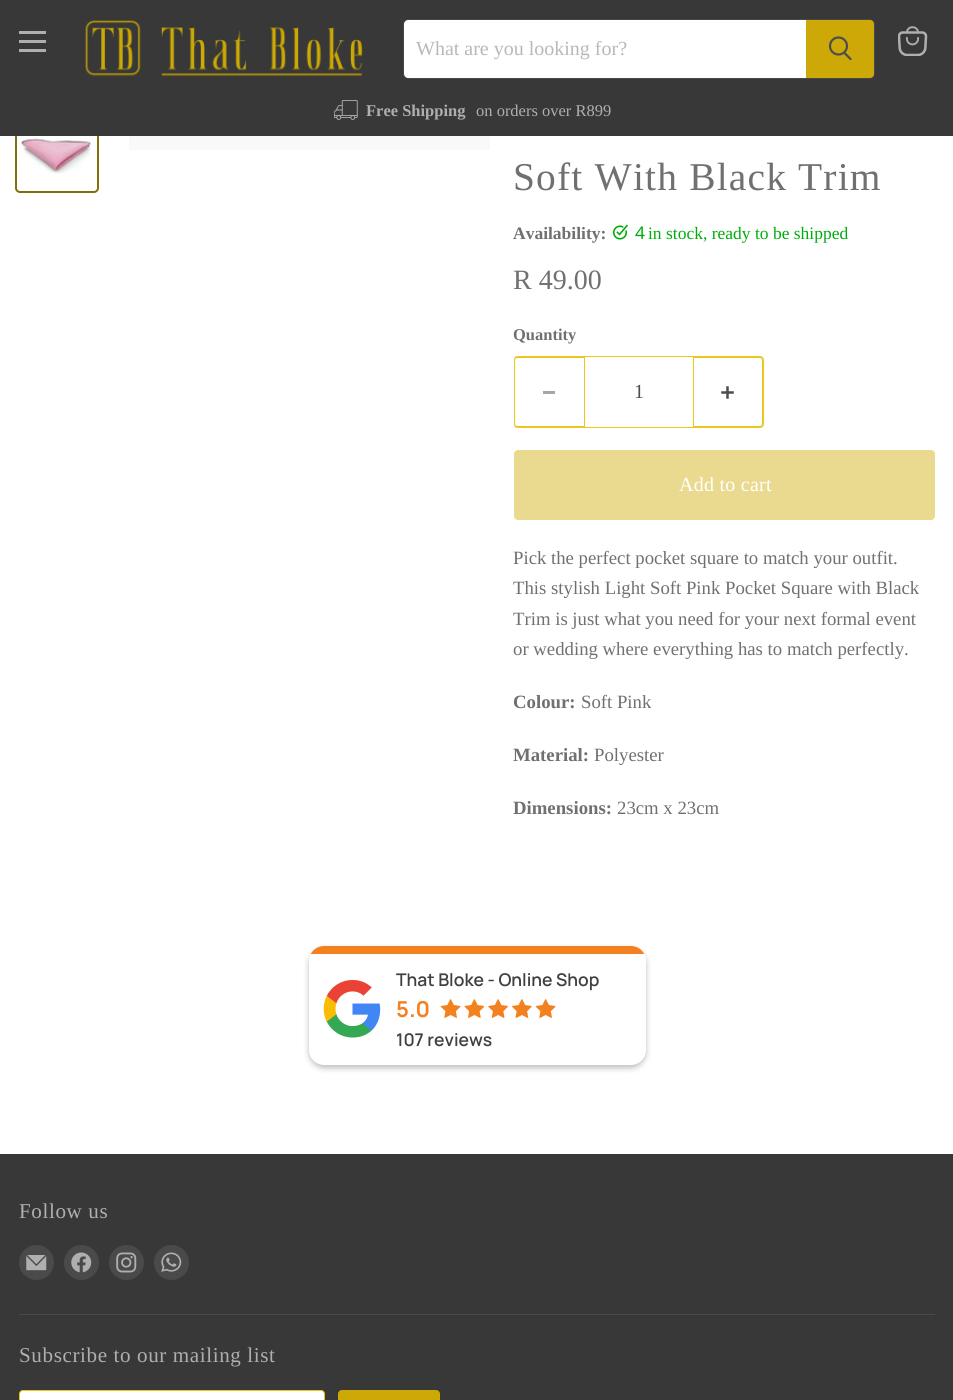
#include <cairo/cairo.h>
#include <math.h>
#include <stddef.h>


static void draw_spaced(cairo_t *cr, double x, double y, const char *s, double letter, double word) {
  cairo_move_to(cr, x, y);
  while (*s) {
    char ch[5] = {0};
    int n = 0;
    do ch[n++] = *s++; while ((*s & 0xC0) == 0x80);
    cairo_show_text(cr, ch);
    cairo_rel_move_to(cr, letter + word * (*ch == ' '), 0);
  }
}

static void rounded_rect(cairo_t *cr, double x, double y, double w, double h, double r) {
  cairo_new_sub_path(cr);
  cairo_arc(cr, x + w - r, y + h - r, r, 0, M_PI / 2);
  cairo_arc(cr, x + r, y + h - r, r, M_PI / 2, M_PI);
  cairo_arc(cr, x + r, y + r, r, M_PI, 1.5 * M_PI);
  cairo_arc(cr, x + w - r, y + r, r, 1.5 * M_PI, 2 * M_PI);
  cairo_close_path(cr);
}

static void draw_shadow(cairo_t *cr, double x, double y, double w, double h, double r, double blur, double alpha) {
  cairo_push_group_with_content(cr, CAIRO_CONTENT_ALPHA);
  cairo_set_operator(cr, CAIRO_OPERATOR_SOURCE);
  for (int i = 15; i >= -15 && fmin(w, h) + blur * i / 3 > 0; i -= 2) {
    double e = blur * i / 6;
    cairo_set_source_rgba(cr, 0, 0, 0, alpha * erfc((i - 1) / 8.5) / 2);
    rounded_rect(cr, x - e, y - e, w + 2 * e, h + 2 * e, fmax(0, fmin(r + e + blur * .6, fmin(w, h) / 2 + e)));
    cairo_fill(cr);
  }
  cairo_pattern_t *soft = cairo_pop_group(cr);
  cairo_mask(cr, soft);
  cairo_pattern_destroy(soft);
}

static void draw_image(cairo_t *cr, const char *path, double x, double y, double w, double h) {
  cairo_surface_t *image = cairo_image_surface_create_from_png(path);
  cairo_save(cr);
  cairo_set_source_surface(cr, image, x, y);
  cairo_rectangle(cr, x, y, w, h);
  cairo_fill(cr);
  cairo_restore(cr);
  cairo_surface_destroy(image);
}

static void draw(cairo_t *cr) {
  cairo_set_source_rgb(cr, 1, 1, 1);
  cairo_paint(cr);
  rounded_rect(cr, 16, 110, 82, 82, 4);
  cairo_set_source_rgb(cr, 131 / 255.0, 110 / 255.0, 12 / 255.0);
  cairo_stroke(cr);
  cairo_set_source_rgb(cr, 56 / 255.0, 56 / 255.0, 56 / 255.0);
  cairo_rectangle(cr, 0, 0, 953, 136);
  cairo_fill(cr);
  cairo_set_source_rgb(cr, 175 / 255.0, 175 / 255.0, 175 / 255.0);
  cairo_rectangle(cr, 19, 31, 27, 3);
  cairo_fill(cr);
  cairo_rectangle(cr, 19, 40, 27, 3);
  cairo_fill(cr);
  cairo_rectangle(cr, 19, 49, 27, 3);
  cairo_fill(cr);
  draw_image(cr, "images/1.png", 85, 20, 278, 57);
  rounded_rect(cr, 403.5, 19.5, 471, 59, 4.5);
  cairo_set_source_rgba(cr, 128 / 255.0, 128 / 255.0, 128 / 255.0, 0.2);
  cairo_set_line_width(cr, 1);
  cairo_stroke(cr);
  cairo_set_source_rgb(cr, 1, 1, 1);
  cairo_new_path(cr);
  cairo_move_to(cr, 408, 20);
  cairo_line_to(cr, 806, 20);
  cairo_line_to(cr, 806, 78);
  cairo_line_to(cr, 408, 78);
  cairo_curve_to(cr, 406, 78, 404, 76, 404, 74);
  cairo_line_to(cr, 404, 24);
  cairo_curve_to(cr, 404, 22, 406, 20, 408, 20);
  cairo_close_path(cr);
  cairo_fill(cr);
  cairo_set_source_rgb(cr, 204 / 255.0, 169 / 255.0, 6 / 255.0);
  cairo_new_path(cr);
  cairo_move_to(cr, 806.5, 20.5);
  cairo_line_to(cr, 870, 20.5);
  cairo_curve_to(cr, 872, 20.5, 873.5, 22, 873.5, 24);
  cairo_line_to(cr, 873.5, 74);
  cairo_curve_to(cr, 873.5, 76, 872, 77.5, 870, 77.5);
  cairo_line_to(cr, 806.5, 77.5);
  cairo_close_path(cr);
  cairo_fill_preserve(cr);
  cairo_stroke(cr);
  cairo_new_path(cr);
  cairo_move_to(cr, 850.5, 59);
  cairo_line_to(cr, 844.5, 53);
  cairo_set_source_rgb(cr, 77 / 255.0, 77 / 255.0, 77 / 255.0);
  cairo_set_line_width(cr, 2.2);
  cairo_set_line_cap(cr, CAIRO_LINE_CAP_ROUND);
  cairo_stroke(cr);
  cairo_arc(cr, 838.5, 46, 8.5, 0, 2 * M_PI);
  cairo_set_line_cap(cr, CAIRO_LINE_CAP_BUTT);
  cairo_stroke(cr);
  draw_image(cr, "images/2.png", 334, 100, 24, 20);
  draw_image(cr, "images/3.png", 898, 26, 30, 30);
  draw_image(cr, "images/4.png", 19, 136, 75, 38);
  cairo_set_source_rgb(cr, 249 / 255.0, 249 / 255.0, 249 / 255.0);
  cairo_rectangle(cr, 129, 136, 361, 14);
  cairo_fill(cr);
  draw_image(cr, "images/5.png", 613, 224, 15, 16);
  cairo_set_source_rgb(cr, 235 / 255.0, 199 / 255.0, 30 / 255.0);
  cairo_set_fill_rule(cr, CAIRO_FILL_RULE_EVEN_ODD);
  cairo_new_path(cr);
  cairo_move_to(cr, 518, 356);
  cairo_line_to(cr, 584, 356);
  cairo_line_to(cr, 584, 428);
  cairo_line_to(cr, 518, 428);
  cairo_curve_to(cr, 515, 428, 514, 426, 514, 424);
  cairo_line_to(cr, 514, 360);
  cairo_curve_to(cr, 514, 358, 515, 356, 518, 356);
  cairo_close_path(cr);
  cairo_move_to(cr, 518, 358);
  cairo_line_to(cr, 584, 358);
  cairo_line_to(cr, 584, 426);
  cairo_line_to(cr, 518, 426);
  cairo_curve_to(cr, 516, 426, 515, 425, 515, 424);
  cairo_line_to(cr, 515, 360);
  cairo_curve_to(cr, 515, 359, 516, 358, 518, 358);
  cairo_close_path(cr);
  cairo_fill(cr);
  cairo_set_source_rgb(cr, 166 / 255.0, 166 / 255.0, 166 / 255.0);
  cairo_rectangle(cr, 543, 391, 12, 3);
  cairo_fill(cr);
  cairo_rectangle(cr, 584.5, 356.5, 109, 71);
  cairo_set_source_rgb(cr, 235 / 255.0, 199 / 255.0, 30 / 255.0);
  cairo_set_line_width(cr, 1);
  cairo_stroke(cr);
  cairo_new_path(cr);
  cairo_move_to(cr, 694, 356);
  cairo_line_to(cr, 760, 356);
  cairo_curve_to(cr, 762, 356, 764, 358, 764, 360);
  cairo_line_to(cr, 764, 424);
  cairo_curve_to(cr, 764, 426, 762, 428, 760, 428);
  cairo_line_to(cr, 694, 428);
  cairo_close_path(cr);
  cairo_move_to(cr, 694, 358);
  cairo_line_to(cr, 760, 358);
  cairo_curve_to(cr, 761, 358, 762, 359, 762, 360);
  cairo_line_to(cr, 762, 424);
  cairo_curve_to(cr, 762, 425, 761, 426, 760, 426);
  cairo_line_to(cr, 694, 426);
  cairo_close_path(cr);
  cairo_fill(cr);
  draw_image(cr, "images/6.png", 721, 386, 13, 13);
  cairo_set_source_rgb(cr, 234 / 255.0, 218 / 255.0, 143 / 255.0);
  rounded_rect(cr, 514, 450, 421, 70, 4);
  cairo_fill(cr);
  cairo_set_source_rgb(cr, 0, 0, 0);
  draw_shadow(cr, 309, 949, 337, 119, 15, 3, 0.26);
  cairo_save(cr);
  cairo_set_fill_rule(cr, CAIRO_FILL_RULE_WINDING);
  rounded_rect(cr, 309, 946, 337, 119, 15);
  cairo_clip(cr);
  cairo_set_source_rgb(cr, 244 / 255.0, 129 / 255.0, 32 / 255.0);
  cairo_rectangle(cr, 309, 946, 337, 8);
  cairo_fill(cr);
  cairo_set_source_rgb(cr, 1, 1, 1);
  cairo_new_path(cr);
  cairo_move_to(cr, 309, 954);
  cairo_line_to(cr, 646, 954);
  cairo_line_to(cr, 646, 1050);
  cairo_curve_to(cr, 646, 1058.5, 639.5, 1065, 631, 1065);
  cairo_line_to(cr, 324, 1065);
  cairo_curve_to(cr, 315.5, 1065, 309, 1058.5, 309, 1050);
  cairo_close_path(cr);
  cairo_fill(cr);
  cairo_restore(cr);
  draw_image(cr, "images/7.png", 323, 979, 58, 59);
  draw_image(cr, "images/8.png", 440, 999, 21, 19);
  draw_image(cr, "images/9.png", 464, 999, 21, 19);
  draw_image(cr, "images/10.png", 488, 999, 20, 19);
  draw_image(cr, "images/11.png", 512, 999, 20, 19);
  draw_image(cr, "images/8.png", 535, 999, 21, 19);
  cairo_set_source_rgb(cr, 56 / 255.0, 56 / 255.0, 56 / 255.0);
  cairo_rectangle(cr, 0, 1154, 953, 246);
  cairo_fill(cr);
  cairo_set_source_rgb(cr, 74 / 255.0, 74 / 255.0, 74 / 255.0);
  cairo_rectangle(cr, 19, 1314, 916, 1);
  cairo_fill(cr);
  cairo_arc(cr, 36.5, 1262.5, 17.5, 0, 2 * M_PI);
  cairo_fill(cr);
  draw_image(cr, "images/12.png", 26, 1255, 21, 16);
  cairo_arc(cr, 81.5, 1262.5, 17.5, 0, 2 * M_PI);
  cairo_fill(cr);
  draw_image(cr, "images/13.png", 71, 1252, 21, 21);
  cairo_arc(cr, 126.5, 1262.5, 17.5, 0, 2 * M_PI);
  cairo_fill(cr);
  draw_image(cr, "images/14.png", 116, 1252, 21, 21);
  cairo_arc(cr, 171.5, 1262.5, 17.5, 0, 2 * M_PI);
  cairo_fill(cr);
  draw_image(cr, "images/15.png", 161, 1252, 21, 20);
  cairo_set_source_rgb(cr, 1, 1, 1);
  rounded_rect(cr, 19.5, 1390.5, 305, 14, 3.5);
  cairo_fill_preserve(cr);
  cairo_set_source_rgb(cr, 235 / 255.0, 199 / 255.0, 30 / 255.0);
  cairo_stroke(cr);
  cairo_set_source_rgb(cr, 204 / 255.0, 169 / 255.0, 6 / 255.0);
  rounded_rect(cr, 338.5, 1390.5, 101, 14, 3.5);
  cairo_fill_preserve(cr);
  cairo_stroke(cr);
  cairo_select_font_face(cr, "Liberation Serif", CAIRO_FONT_SLANT_NORMAL, CAIRO_FONT_WEIGHT_NORMAL);
  cairo_set_font_size(cr, 20);
  cairo_set_source_rgb(cr, 184 / 255.0, 184 / 255.0, 184 / 255.0);
  cairo_move_to(cr, 416, 55);
  cairo_show_text(cr, "What are you looking for?");
  cairo_select_font_face(cr, "Liberation Serif", CAIRO_FONT_SLANT_NORMAL, CAIRO_FONT_WEIGHT_BOLD);
  cairo_set_font_size(cr, 16.5);
  cairo_set_source_rgb(cr, 175 / 255.0, 175 / 255.0, 175 / 255.0);
  cairo_move_to(cr, 366, 116);
  cairo_show_text(cr, "Free Shipping");
  cairo_select_font_face(cr, "Liberation Serif", CAIRO_FONT_SLANT_NORMAL, CAIRO_FONT_WEIGHT_NORMAL);
  cairo_move_to(cr, 476, 116);
  cairo_show_text(cr, "on orders over R899");
  cairo_set_font_size(cr, 39.4);
  cairo_set_source_rgb(cr, 112 / 255.0, 112 / 255.0, 112 / 255.0);
  draw_spaced(cr, 513, 190, "Soft With Black Trim", 1.2, 0);
  cairo_select_font_face(cr, "Liberation Serif", CAIRO_FONT_SLANT_NORMAL, CAIRO_FONT_WEIGHT_BOLD);
  cairo_set_font_size(cr, 17.5);
  cairo_move_to(cr, 513, 239);
  cairo_show_text(cr, "Availability:");
  cairo_select_font_face(cr, "Noto Sans", CAIRO_FONT_SLANT_NORMAL, CAIRO_FONT_WEIGHT_NORMAL);
  cairo_set_source_rgb(cr, 0, 172 / 255.0, 12 / 255.0);
  cairo_move_to(cr, 635, 239);
  cairo_show_text(cr, "4");
  cairo_select_font_face(cr, "Liberation Serif", CAIRO_FONT_SLANT_NORMAL, CAIRO_FONT_WEIGHT_NORMAL);
  cairo_move_to(cr, 648, 239);
  cairo_show_text(cr, "in stock, ready to be shipped");
  cairo_set_font_size(cr, 28);
  cairo_set_source_rgb(cr, 112 / 255.0, 112 / 255.0, 112 / 255.0);
  cairo_move_to(cr, 513, 289);
  cairo_show_text(cr, "R 49.00");
  cairo_select_font_face(cr, "Liberation Serif", CAIRO_FONT_SLANT_NORMAL, CAIRO_FONT_WEIGHT_BOLD);
  cairo_set_font_size(cr, 16.5);
  cairo_move_to(cr, 513, 340);
  cairo_show_text(cr, "Quantity");
  cairo_select_font_face(cr, "Liberation Serif", CAIRO_FONT_SLANT_NORMAL, CAIRO_FONT_WEIGHT_NORMAL);
  cairo_set_font_size(cr, 20);
  cairo_set_source_rgb(cr, 77 / 255.0, 77 / 255.0, 77 / 255.0);
  cairo_move_to(cr, 634, 398);
  cairo_show_text(cr, "1");
  cairo_set_source_rgb(cr, 1, 1, 1);
  draw_spaced(cr, 679, 491, "Add to cart", 0.25, 0);
  cairo_set_font_size(cr, 18.75);
  cairo_set_source_rgb(cr, 112 / 255.0, 112 / 255.0, 112 / 255.0);
  cairo_move_to(cr, 513, 564);
  cairo_show_text(cr, "Pick the perfect pocket square to match your outfit.");
  cairo_move_to(cr, 513, 594);
  cairo_show_text(cr, "This stylish Light Soft Pink Pocket Square with Black");
  cairo_move_to(cr, 513, 625);
  cairo_show_text(cr, "Trim is just what you need for your next formal event");
  cairo_move_to(cr, 513, 655);
  cairo_show_text(cr, "or wedding where everything has to match perfectly.");
  cairo_select_font_face(cr, "Liberation Serif", CAIRO_FONT_SLANT_NORMAL, CAIRO_FONT_WEIGHT_BOLD);
  cairo_move_to(cr, 513, 708);
  cairo_show_text(cr, "Colour:");
  cairo_select_font_face(cr, "Liberation Serif", CAIRO_FONT_SLANT_NORMAL, CAIRO_FONT_WEIGHT_NORMAL);
  cairo_move_to(cr, 581, 708);
  cairo_show_text(cr, "Soft Pink");
  cairo_select_font_face(cr, "Liberation Serif", CAIRO_FONT_SLANT_NORMAL, CAIRO_FONT_WEIGHT_BOLD);
  cairo_move_to(cr, 513, 761);
  cairo_show_text(cr, "Material:");
  cairo_select_font_face(cr, "Liberation Serif", CAIRO_FONT_SLANT_NORMAL, CAIRO_FONT_WEIGHT_NORMAL);
  cairo_move_to(cr, 594, 761);
  cairo_show_text(cr, "Polyester");
  cairo_select_font_face(cr, "Liberation Serif", CAIRO_FONT_SLANT_NORMAL, CAIRO_FONT_WEIGHT_BOLD);
  cairo_move_to(cr, 513, 814);
  cairo_show_text(cr, "Dimensions:");
  cairo_select_font_face(cr, "Liberation Serif", CAIRO_FONT_SLANT_NORMAL, CAIRO_FONT_WEIGHT_NORMAL);
  cairo_move_to(cr, 617, 814);
  cairo_show_text(cr, "23cm x 23cm");
  cairo_select_font_face(cr, "Manrope SemiBold", CAIRO_FONT_SLANT_NORMAL, CAIRO_FONT_WEIGHT_NORMAL);
  cairo_set_font_size(cr, 17.5);
  cairo_set_source_rgb(cr, 64 / 255.0, 64 / 255.0, 64 / 255.0);
  cairo_move_to(cr, 396, 986);
  cairo_show_text(cr, "That Bloke - Online Shop");
  cairo_select_font_face(cr, "Manrope", CAIRO_FONT_SLANT_NORMAL, CAIRO_FONT_WEIGHT_BOLD);
  cairo_set_font_size(cr, 22);
  cairo_set_source_rgb(cr, 244 / 255.0, 129 / 255.0, 32 / 255.0);
  cairo_move_to(cr, 396, 1017);
  cairo_show_text(cr, "5.0");
  cairo_select_font_face(cr, "Manrope SemiBold", CAIRO_FONT_SLANT_NORMAL, CAIRO_FONT_WEIGHT_NORMAL);
  cairo_set_font_size(cr, 17.5);
  cairo_set_source_rgb(cr, 64 / 255.0, 64 / 255.0, 64 / 255.0);
  cairo_move_to(cr, 396, 1046);
  cairo_show_text(cr, "107 reviews");
  cairo_select_font_face(cr, "Liberation Serif", CAIRO_FONT_SLANT_NORMAL, CAIRO_FONT_WEIGHT_NORMAL);
  cairo_set_font_size(cr, 21.1);
  cairo_set_source_rgb(cr, 175 / 255.0, 175 / 255.0, 175 / 255.0);
  draw_spaced(cr, 19, 1218, "Follow us", 0.6, 0);
  draw_spaced(cr, 19, 1362, "Subscribe to our mailing list", 0.6, 0);
}

int main(void) {
  cairo_surface_t *surface = cairo_image_surface_create(CAIRO_FORMAT_RGB24, 953, 1400);
  cairo_t *cr = cairo_create(surface);
  cairo_font_options_t *options = cairo_font_options_create();
  cairo_font_options_set_hint_metrics(options, CAIRO_HINT_METRICS_OFF);
  cairo_font_options_set_hint_style(options, CAIRO_HINT_STYLE_NONE);
  cairo_set_font_options(cr, options);
  cairo_set_miter_limit(cr, 4);
  draw(cr);
  cairo_surface_write_to_png(surface, "out.png");
  cairo_font_options_destroy(options);
  cairo_destroy(cr);
  cairo_surface_destroy(surface);
  return 0;
}
